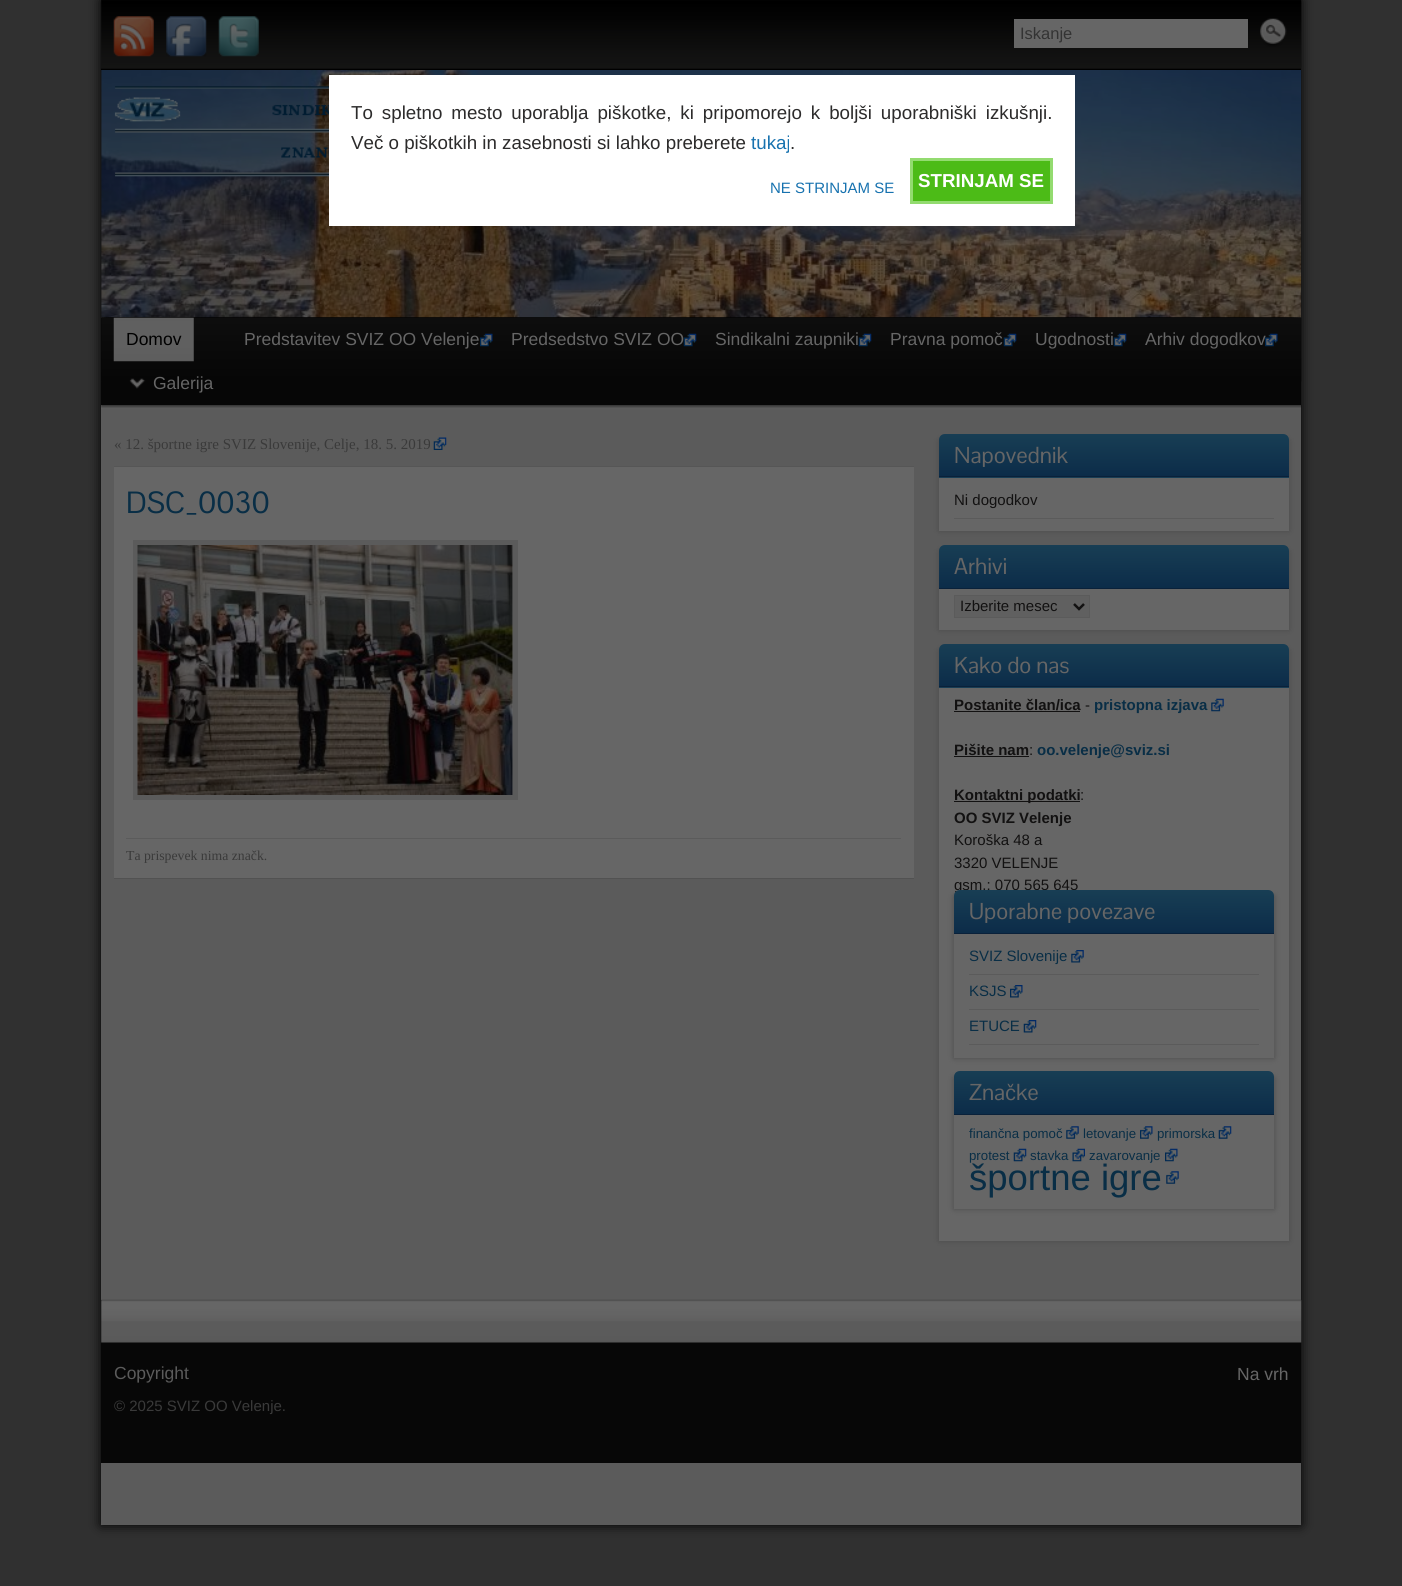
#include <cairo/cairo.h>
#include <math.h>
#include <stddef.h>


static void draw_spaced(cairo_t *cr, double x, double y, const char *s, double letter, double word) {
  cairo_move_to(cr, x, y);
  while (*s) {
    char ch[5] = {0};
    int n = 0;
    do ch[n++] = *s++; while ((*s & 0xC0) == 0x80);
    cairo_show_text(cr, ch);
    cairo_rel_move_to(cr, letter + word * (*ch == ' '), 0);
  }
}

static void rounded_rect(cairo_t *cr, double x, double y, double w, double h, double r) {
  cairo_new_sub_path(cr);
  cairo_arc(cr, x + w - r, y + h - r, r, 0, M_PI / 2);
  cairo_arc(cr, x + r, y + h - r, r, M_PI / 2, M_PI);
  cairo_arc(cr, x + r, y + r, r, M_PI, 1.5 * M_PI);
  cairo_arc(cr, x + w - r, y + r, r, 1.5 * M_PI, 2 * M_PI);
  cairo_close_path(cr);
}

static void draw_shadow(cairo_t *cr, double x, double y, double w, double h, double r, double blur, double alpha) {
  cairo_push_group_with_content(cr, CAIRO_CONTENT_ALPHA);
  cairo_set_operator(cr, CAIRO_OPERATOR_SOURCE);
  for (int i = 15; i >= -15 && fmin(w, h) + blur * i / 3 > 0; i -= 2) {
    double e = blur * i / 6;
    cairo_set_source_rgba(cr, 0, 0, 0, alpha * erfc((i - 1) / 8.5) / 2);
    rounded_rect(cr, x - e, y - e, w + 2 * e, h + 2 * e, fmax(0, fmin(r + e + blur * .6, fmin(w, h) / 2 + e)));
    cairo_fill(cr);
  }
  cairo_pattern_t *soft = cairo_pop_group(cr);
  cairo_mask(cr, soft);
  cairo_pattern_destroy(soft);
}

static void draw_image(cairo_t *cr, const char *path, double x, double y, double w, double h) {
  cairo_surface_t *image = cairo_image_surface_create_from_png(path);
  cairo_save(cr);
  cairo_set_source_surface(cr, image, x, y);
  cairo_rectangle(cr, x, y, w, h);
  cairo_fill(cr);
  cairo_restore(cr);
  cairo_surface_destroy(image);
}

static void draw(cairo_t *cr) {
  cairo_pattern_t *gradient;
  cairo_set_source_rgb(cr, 48 / 255.0, 48 / 255.0, 48 / 255.0);
  cairo_paint(cr);
  cairo_set_source_rgb(cr, 0, 0, 0);
  draw_shadow(cr, 101, 0, 1200, 1525, 0, 6, 1);
  cairo_set_source_rgb(cr, 20 / 255.0, 20 / 255.0, 19 / 255.0);
  cairo_rectangle(cr, 101, 0, 1200, 68);
  cairo_fill(cr);
  draw_image(cr, "images/1.png", 101, 0, 1201, 67);
  cairo_set_source_rgb(cr, 14 / 255.0, 14 / 255.0, 14 / 255.0);
  cairo_rectangle(cr, 101, 68, 1200, 1);
  cairo_fill(cr);
  draw_image(cr, "images/2.png", 113, 16, 41, 41);
  draw_image(cr, "images/3.png", 166, 16, 41, 41);
  draw_image(cr, "images/4.png", 218, 16, 41, 41);
  cairo_set_source_rgb(cr, 102 / 255.0, 102 / 255.0, 102 / 255.0);
  cairo_rectangle(cr, 1014, 19, 234, 29);
  cairo_fill(cr);
  draw_image(cr, "images/5.png", 1260, 18, 27, 29);
  cairo_set_source_rgb(cr, 0, 0, 0);
  cairo_rectangle(cr, 101, 69, 1200, 1);
  cairo_fill(cr);
  draw_image(cr, "images/6.png", 101, 70, 1201, 248);
  draw_image(cr, "images/7.png", 114, 86, 215, 91);
  cairo_set_source_rgb(cr, 6 / 255.0, 6 / 255.0, 6 / 255.0);
  cairo_rectangle(cr, 101, 318, 1200, 87);
  cairo_fill(cr);
  draw_image(cr, "images/8.png", 101, 317, 1201, 65);
  draw_image(cr, "images/9.png", 113, 317, 81, 45);
  draw_image(cr, "images/10.png", 480, 333, 13, 14);
  draw_image(cr, "images/11.png", 683, 333, 14, 14);
  draw_image(cr, "images/11.png", 858, 333, 14, 14);
  draw_image(cr, "images/11.png", 1003, 333, 14, 14);
  draw_image(cr, "images/11.png", 1113, 333, 14, 14);
  draw_image(cr, "images/12.png", 1265, 333, 13, 14);
  draw_image(cr, "images/13.png", 129, 378, 17, 11);
  cairo_set_source_rgb(cr, 95 / 255.0, 95 / 255.0, 95 / 255.0);
  cairo_rectangle(cr, 101, 405, 1200, 4);
  cairo_fill(cr);
  draw_image(cr, "images/14.png", 101, 405, 1201, 4);
  cairo_set_source_rgb(cr, 91 / 255.0, 91 / 255.0, 91 / 255.0);
  cairo_rectangle(cr, 101, 409, 1200, 1116);
  cairo_fill(cr);
  draw_image(cr, "images/15.png", 433, 437, 14, 13);
  cairo_set_source_rgb(cr, 102 / 255.0, 102 / 255.0, 102 / 255.0);
  cairo_rectangle(cr, 114, 467, 800, 411);
  cairo_fill(cr);
  cairo_set_source_rgb(cr, 86 / 255.0, 86 / 255.0, 86 / 255.0);
  cairo_rectangle(cr, 114, 466, 800, 1);
  cairo_fill(cr);
  cairo_set_source_rgb(cr, 82 / 255.0, 82 / 255.0, 82 / 255.0);
  cairo_rectangle(cr, 114, 878, 800, 1);
  cairo_fill(cr);
  cairo_rectangle(cr, 135.5, 542.5, 380, 255);
  cairo_set_source_rgb(cr, 91 / 255.0, 91 / 255.0, 91 / 255.0);
  cairo_set_line_width(cr, 5);
  cairo_stroke(cr);
  draw_image(cr, "images/16.png", 137, 545, 376, 250);
  cairo_rectangle(cr, 126, 838, 775, 1);
  cairo_fill(cr);
  cairo_set_source_rgb(cr, 75 / 255.0, 75 / 255.0, 75 / 255.0);
  draw_shadow(cr, 939, 440, 350, 91, 0, 3, 1);
  cairo_set_source_rgb(cr, 102 / 255.0, 102 / 255.0, 102 / 255.0);
  cairo_rectangle(cr, 939, 478, 350, 53);
  cairo_fill(cr);
  gradient = cairo_pattern_create_linear(1114, 434, 1114, 476);
  cairo_pattern_add_color_stop_rgba(gradient, 0, 24 / 255.0, 62 / 255.0, 84 / 255.0, 1);
  cairo_pattern_add_color_stop_rgba(gradient, 1, 12 / 255.0, 44 / 255.0, 73 / 255.0, 1);
  cairo_set_source(cr, gradient);
  cairo_pattern_destroy(gradient);
  cairo_new_path(cr);
  cairo_move_to(cr, 945, 434);
  cairo_line_to(cr, 1283, 434);
  cairo_curve_to(cr, 1286.5, 434, 1289, 436.5, 1289, 440);
  cairo_line_to(cr, 1289, 476);
  cairo_line_to(cr, 939, 476);
  cairo_line_to(cr, 939, 440);
  cairo_curve_to(cr, 939, 436.5, 941.5, 434, 945, 434);
  cairo_close_path(cr);
  cairo_fill(cr);
  gradient = cairo_pattern_create_linear(1114, 476, 1114, 519);
  cairo_pattern_add_color_stop_rgba(gradient, 0, 24 / 255.0, 62 / 255.0, 84 / 255.0, 1);
  cairo_pattern_add_color_stop_rgba(gradient, 1, 12 / 255.0, 44 / 255.0, 73 / 255.0, 1);
  cairo_set_source(cr, gradient);
  cairo_pattern_destroy(gradient);
  cairo_rectangle(cr, 939, 477, 350, 1);
  cairo_fill(cr);
  cairo_set_source_rgb(cr, 10 / 255.0, 33 / 255.0, 58 / 255.0);
  cairo_rectangle(cr, 939, 476, 350, 1);
  cairo_fill(cr);
  cairo_set_source_rgb(cr, 91 / 255.0, 91 / 255.0, 91 / 255.0);
  cairo_rectangle(cr, 954, 518, 320, 1);
  cairo_fill(cr);
  cairo_set_source_rgb(cr, 75 / 255.0, 75 / 255.0, 75 / 255.0);
  draw_shadow(cr, 939, 551, 350, 79, 0, 3, 1);
  cairo_set_source_rgb(cr, 102 / 255.0, 102 / 255.0, 102 / 255.0);
  cairo_rectangle(cr, 939, 589, 350, 41);
  cairo_fill(cr);
  gradient = cairo_pattern_create_linear(1114, 545, 1114, 588);
  cairo_pattern_add_color_stop_rgba(gradient, 0, 24 / 255.0, 62 / 255.0, 84 / 255.0, 1);
  cairo_pattern_add_color_stop_rgba(gradient, 1, 12 / 255.0, 44 / 255.0, 73 / 255.0, 1);
  cairo_set_source(cr, gradient);
  cairo_pattern_destroy(gradient);
  cairo_new_path(cr);
  cairo_move_to(cr, 945, 545);
  cairo_line_to(cr, 1283, 545);
  cairo_curve_to(cr, 1286.5, 545, 1289, 547.5, 1289, 551);
  cairo_line_to(cr, 1289, 588);
  cairo_line_to(cr, 939, 588);
  cairo_line_to(cr, 939, 551);
  cairo_curve_to(cr, 939, 547.5, 941.5, 545, 945, 545);
  cairo_close_path(cr);
  cairo_fill(cr);
  cairo_set_source_rgb(cr, 10 / 255.0, 33 / 255.0, 58 / 255.0);
  cairo_rectangle(cr, 939, 588, 350, 1);
  cairo_fill(cr);
  cairo_set_source_rgb(cr, 96 / 255.0, 96 / 255.0, 96 / 255.0);
  cairo_rectangle(cr, 954.5, 595.5, 135, 22);
  cairo_fill_preserve(cr);
  cairo_set_source_rgb(cr, 91 / 255.0, 91 / 255.0, 91 / 255.0);
  cairo_set_line_width(cr, 1);
  cairo_stroke(cr);
  cairo_new_path(cr);
  cairo_move_to(cr, 1074, 604);
  cairo_line_to(cr, 1079, 609);
  cairo_line_to(cr, 1084, 604);
  cairo_set_source_rgb(cr, 18 / 255.0, 17 / 255.0, 17 / 255.0);
  cairo_set_line_width(cr, 2.5);
  cairo_stroke(cr);
  cairo_set_source_rgb(cr, 75 / 255.0, 75 / 255.0, 75 / 255.0);
  draw_shadow(cr, 939, 650, 350, 591, 0, 3, 1);
  cairo_set_source_rgb(cr, 102 / 255.0, 102 / 255.0, 102 / 255.0);
  cairo_rectangle(cr, 939, 688, 350, 553);
  cairo_fill(cr);
  gradient = cairo_pattern_create_linear(1114, 644, 1114, 686);
  cairo_pattern_add_color_stop_rgba(gradient, 0, 24 / 255.0, 62 / 255.0, 84 / 255.0, 1);
  cairo_pattern_add_color_stop_rgba(gradient, 1, 12 / 255.0, 44 / 255.0, 73 / 255.0, 1);
  cairo_set_source(cr, gradient);
  cairo_pattern_destroy(gradient);
  cairo_new_path(cr);
  cairo_move_to(cr, 945, 644);
  cairo_line_to(cr, 1283, 644);
  cairo_curve_to(cr, 1286.5, 644, 1289, 646.5, 1289, 650);
  cairo_line_to(cr, 1289, 686);
  cairo_line_to(cr, 939, 686);
  cairo_line_to(cr, 939, 650);
  cairo_curve_to(cr, 939, 646.5, 941.5, 644, 945, 644);
  cairo_close_path(cr);
  cairo_fill(cr);
  gradient = cairo_pattern_create_linear(1114, 686, 1114, 729);
  cairo_pattern_add_color_stop_rgba(gradient, 0, 24 / 255.0, 62 / 255.0, 84 / 255.0, 1);
  cairo_pattern_add_color_stop_rgba(gradient, 1, 12 / 255.0, 44 / 255.0, 73 / 255.0, 1);
  cairo_set_source(cr, gradient);
  cairo_pattern_destroy(gradient);
  cairo_rectangle(cr, 939, 687, 350, 1);
  cairo_fill(cr);
  cairo_set_source_rgb(cr, 10 / 255.0, 33 / 255.0, 58 / 255.0);
  cairo_rectangle(cr, 939, 686, 350, 1);
  cairo_fill(cr);
  cairo_set_source_rgb(cr, 18 / 255.0, 17 / 255.0, 17 / 255.0);
  cairo_rectangle(cr, 954, 711, 126, 1);
  cairo_fill(cr);
  draw_image(cr, "images/17.png", 1211, 698, 13, 14);
  cairo_rectangle(cr, 954, 756, 75, 1);
  cairo_fill(cr);
  cairo_rectangle(cr, 954, 801, 126, 1);
  cairo_fill(cr);
  cairo_set_source_rgb(cr, 75 / 255.0, 75 / 255.0, 75 / 255.0);
  draw_shadow(cr, 954, 896, 320, 162, 0, 3, 1);
  cairo_set_source_rgb(cr, 102 / 255.0, 102 / 255.0, 102 / 255.0);
  cairo_rectangle(cr, 954, 934, 320, 124);
  cairo_fill(cr);
  cairo_set_source_rgb(cr, 10 / 255.0, 33 / 255.0, 58 / 255.0);
  cairo_rectangle(cr, 954, 933, 320, 1);
  cairo_fill(cr);
  cairo_set_source_rgb(cr, 91 / 255.0, 91 / 255.0, 91 / 255.0);
  cairo_rectangle(cr, 969, 974, 290, 1);
  cairo_fill(cr);
  draw_image(cr, "images/18.png", 1071, 950, 13, 13);
  cairo_rectangle(cr, 969, 1009, 290, 1);
  cairo_fill(cr);
  draw_image(cr, "images/19.png", 1010, 985, 13, 13);
  cairo_rectangle(cr, 969, 1044, 290, 1);
  cairo_fill(cr);
  draw_image(cr, "images/20.png", 1023, 1020, 14, 13);
  cairo_set_source_rgb(cr, 75 / 255.0, 75 / 255.0, 75 / 255.0);
  draw_shadow(cr, 954, 1078, 320, 131, 0, 3, 1);
  cairo_set_source_rgb(cr, 102 / 255.0, 102 / 255.0, 102 / 255.0);
  cairo_rectangle(cr, 954, 1115, 320, 94);
  cairo_fill(cr);
  gradient = cairo_pattern_create_linear(1114, 1071, 1114, 1114);
  cairo_pattern_add_color_stop_rgba(gradient, 0, 24 / 255.0, 62 / 255.0, 84 / 255.0, 1);
  cairo_pattern_add_color_stop_rgba(gradient, 1, 12 / 255.0, 44 / 255.0, 73 / 255.0, 1);
  cairo_set_source(cr, gradient);
  cairo_pattern_destroy(gradient);
  cairo_new_path(cr);
  cairo_move_to(cr, 960, 1071);
  cairo_line_to(cr, 1268, 1071);
  cairo_curve_to(cr, 1271.5, 1071, 1274, 1073.5, 1274, 1077);
  cairo_line_to(cr, 1274, 1114);
  cairo_line_to(cr, 954, 1114);
  cairo_line_to(cr, 954, 1077);
  cairo_curve_to(cr, 954, 1073.5, 956.5, 1071, 960, 1071);
  cairo_close_path(cr);
  cairo_fill(cr);
  cairo_set_source_rgb(cr, 10 / 255.0, 33 / 255.0, 58 / 255.0);
  cairo_rectangle(cr, 954, 1114, 320, 1);
  cairo_fill(cr);
  draw_image(cr, "images/21.png", 1066, 1126, 13, 13);
  draw_image(cr, "images/22.png", 1140, 1126, 13, 13);
  draw_image(cr, "images/23.png", 1218, 1126, 14, 13);
  draw_image(cr, "images/24.png", 1013, 1148, 14, 14);
  draw_image(cr, "images/25.png", 1072, 1148, 13, 14);
  draw_image(cr, "images/26.png", 1165, 1148, 13, 14);
  draw_image(cr, "images/27.png", 1166, 1171, 13, 13);
  cairo_set_source_rgb(cr, 7 / 255.0, 7 / 255.0, 7 / 255.0);
  cairo_rectangle(cr, 101, 1300, 1200, 163);
  cairo_fill(cr);
  draw_image(cr, "images/28.png", 101, 1299, 1201, 44);
  cairo_set_source_rgb(cr, 85 / 255.0, 85 / 255.0, 85 / 255.0);
  cairo_rectangle(cr, 101, 1299, 1200, 1);
  cairo_fill(cr);
  cairo_set_source_rgb(cr, 1, 1, 1);
  cairo_rectangle(cr, 329, 75, 746, 151);
  cairo_fill(cr);
  cairo_set_source_rgb(cr, 76 / 255.0, 187 / 255.0, 23 / 255.0);
  cairo_rectangle(cr, 911.5, 159.5, 140, 43);
  cairo_fill_preserve(cr);
  cairo_set_source_rgb(cr, 147 / 255.0, 219 / 255.0, 112 / 255.0);
  cairo_set_line_width(cr, 3);
  cairo_stroke(cr);
  cairo_select_font_face(cr, "Liberation Sans", CAIRO_FONT_SLANT_NORMAL, CAIRO_FONT_WEIGHT_NORMAL);
  cairo_set_font_size(cr, 16.5);
  cairo_set_source_rgb(cr, 51 / 255.0, 51 / 255.0, 51 / 255.0);
  cairo_move_to(cr, 1020, 39);
  cairo_show_text(cr, "Iskanje");
  cairo_set_font_size(cr, 17.5);
  cairo_set_source_rgb(cr, 0, 0, 0);
  cairo_move_to(cr, 126, 345);
  cairo_show_text(cr, "Domov");
  cairo_set_source_rgb(cr, 102 / 255.0, 102 / 255.0, 102 / 255.0);
  cairo_move_to(cr, 244, 345);
  cairo_show_text(cr, "Predstavitev SVIZ OO Velenje");
  cairo_move_to(cr, 511, 345);
  cairo_show_text(cr, "Predsedstvo SVIZ OO");
  cairo_move_to(cr, 715, 345);
  cairo_show_text(cr, "Sindikalni zaupniki");
  cairo_move_to(cr, 890, 345);
  cairo_show_text(cr, "Pravna pomoč");
  cairo_move_to(cr, 1035, 345);
  cairo_show_text(cr, "Ugodnosti");
  cairo_move_to(cr, 1145, 345);
  cairo_show_text(cr, "Arhiv dogodkov");
  cairo_move_to(cr, 153, 389);
  cairo_show_text(cr, "Galerija");
  cairo_select_font_face(cr, "Liberation Serif", CAIRO_FONT_SLANT_NORMAL, CAIRO_FONT_WEIGHT_NORMAL);
  cairo_set_font_size(cr, 15);
  cairo_set_source_rgb(cr, 58 / 255.0, 58 / 255.0, 58 / 255.0);
  cairo_move_to(cr, 114, 449);
  cairo_show_text(cr, "« 12. športne igre SVIZ Slovenije, Celje, 18. 5. 2019");
  cairo_select_font_face(cr, "Pontano Sans", CAIRO_FONT_SLANT_NORMAL, CAIRO_FONT_WEIGHT_NORMAL);
  cairo_set_font_size(cr, 30);
  cairo_set_source_rgb(cr, 9 / 255.0, 46 / 255.0, 70 / 255.0);
  cairo_move_to(cr, 126, 513);
  cairo_show_text(cr, "DSC_0030");
  cairo_select_font_face(cr, "Liberation Serif", CAIRO_FONT_SLANT_NORMAL, CAIRO_FONT_WEIGHT_NORMAL);
  cairo_set_font_size(cr, 13.75);
  cairo_set_source_rgb(cr, 58 / 255.0, 58 / 255.0, 58 / 255.0);
  cairo_move_to(cr, 126, 860);
  cairo_show_text(cr, "Ta prispevek nima značk.");
  cairo_select_font_face(cr, "Pontano Sans", CAIRO_FONT_SLANT_NORMAL, CAIRO_FONT_WEIGHT_NORMAL);
  cairo_set_font_size(cr, 22.5);
  cairo_set_source_rgb(cr, 102 / 255.0, 102 / 255.0, 102 / 255.0);
  cairo_move_to(cr, 954, 463);
  cairo_show_text(cr, "Napovednik");
  cairo_select_font_face(cr, "Liberation Sans", CAIRO_FONT_SLANT_NORMAL, CAIRO_FONT_WEIGHT_NORMAL);
  cairo_set_font_size(cr, 15);
  cairo_set_source_rgb(cr, 18 / 255.0, 17 / 255.0, 17 / 255.0);
  cairo_move_to(cr, 954, 505);
  cairo_show_text(cr, "Ni dogodkov");
  cairo_select_font_face(cr, "Pontano Sans", CAIRO_FONT_SLANT_NORMAL, CAIRO_FONT_WEIGHT_NORMAL);
  cairo_set_font_size(cr, 22.5);
  cairo_set_source_rgb(cr, 102 / 255.0, 102 / 255.0, 102 / 255.0);
  cairo_move_to(cr, 954, 574);
  cairo_show_text(cr, "Arhivi");
  cairo_select_font_face(cr, "Liberation Sans", CAIRO_FONT_SLANT_NORMAL, CAIRO_FONT_WEIGHT_NORMAL);
  cairo_set_font_size(cr, 15);
  cairo_set_source_rgb(cr, 18 / 255.0, 17 / 255.0, 17 / 255.0);
  cairo_move_to(cr, 960, 611);
  cairo_show_text(cr, "Izberite mesec");
  cairo_select_font_face(cr, "Pontano Sans", CAIRO_FONT_SLANT_NORMAL, CAIRO_FONT_WEIGHT_NORMAL);
  cairo_set_font_size(cr, 22.5);
  cairo_set_source_rgb(cr, 102 / 255.0, 102 / 255.0, 102 / 255.0);
  cairo_move_to(cr, 954, 673);
  cairo_show_text(cr, "Kako do nas");
  cairo_select_font_face(cr, "Liberation Sans", CAIRO_FONT_SLANT_NORMAL, CAIRO_FONT_WEIGHT_BOLD);
  cairo_set_font_size(cr, 15);
  cairo_set_source_rgb(cr, 18 / 255.0, 17 / 255.0, 17 / 255.0);
  cairo_move_to(cr, 954, 710);
  cairo_show_text(cr, "Postanite član/ica");
  cairo_select_font_face(cr, "Liberation Sans", CAIRO_FONT_SLANT_NORMAL, CAIRO_FONT_WEIGHT_NORMAL);
  cairo_move_to(cr, 1085, 710);
  cairo_show_text(cr, "-");
  cairo_select_font_face(cr, "Liberation Sans", CAIRO_FONT_SLANT_NORMAL, CAIRO_FONT_WEIGHT_BOLD);
  cairo_set_source_rgb(cr, 9 / 255.0, 46 / 255.0, 70 / 255.0);
  cairo_move_to(cr, 1094, 710);
  cairo_show_text(cr, "pristopna izjava");
  cairo_set_source_rgb(cr, 18 / 255.0, 17 / 255.0, 17 / 255.0);
  cairo_move_to(cr, 954, 755);
  cairo_show_text(cr, "Pišite nam");
  cairo_select_font_face(cr, "Liberation Sans", CAIRO_FONT_SLANT_NORMAL, CAIRO_FONT_WEIGHT_NORMAL);
  cairo_move_to(cr, 1029, 755);
  cairo_show_text(cr, ":");
  cairo_select_font_face(cr, "Liberation Sans", CAIRO_FONT_SLANT_NORMAL, CAIRO_FONT_WEIGHT_BOLD);
  cairo_set_source_rgb(cr, 9 / 255.0, 46 / 255.0, 70 / 255.0);
  cairo_move_to(cr, 1037, 755);
  cairo_show_text(cr, "oo.velenje@sviz.si");
  cairo_set_source_rgb(cr, 18 / 255.0, 17 / 255.0, 17 / 255.0);
  cairo_move_to(cr, 954, 800);
  cairo_show_text(cr, "Kontaktni podatki");
  cairo_select_font_face(cr, "Liberation Sans", CAIRO_FONT_SLANT_NORMAL, CAIRO_FONT_WEIGHT_NORMAL);
  cairo_move_to(cr, 1080, 800);
  cairo_show_text(cr, ":");
  cairo_select_font_face(cr, "Liberation Sans", CAIRO_FONT_SLANT_NORMAL, CAIRO_FONT_WEIGHT_BOLD);
  cairo_move_to(cr, 954, 823);
  cairo_show_text(cr, "OO SVIZ Velenje");
  cairo_select_font_face(cr, "Liberation Sans", CAIRO_FONT_SLANT_NORMAL, CAIRO_FONT_WEIGHT_NORMAL);
  cairo_move_to(cr, 954, 845);
  cairo_show_text(cr, "Koroška 48 a");
  cairo_move_to(cr, 954, 868);
  cairo_show_text(cr, "3320 VELENJE");
  cairo_move_to(cr, 954, 890);
  cairo_show_text(cr, "gsm.: 070 565 645");
  gradient = cairo_pattern_create_linear(1114, 890, 1114, 933);
  cairo_pattern_add_color_stop_rgba(gradient, 0, 24 / 255.0, 62 / 255.0, 84 / 255.0, 1);
  cairo_pattern_add_color_stop_rgba(gradient, 1, 12 / 255.0, 44 / 255.0, 73 / 255.0, 1);
  cairo_set_source(cr, gradient);
  cairo_pattern_destroy(gradient);
  cairo_new_path(cr);
  cairo_move_to(cr, 960, 890);
  cairo_line_to(cr, 1268, 890);
  cairo_curve_to(cr, 1271.5, 890, 1274, 892.5, 1274, 896);
  cairo_line_to(cr, 1274, 933);
  cairo_line_to(cr, 954, 933);
  cairo_line_to(cr, 954, 896);
  cairo_curve_to(cr, 954, 892.5, 956.5, 890, 960, 890);
  cairo_close_path(cr);
  cairo_fill(cr);
  cairo_select_font_face(cr, "Pontano Sans", CAIRO_FONT_SLANT_NORMAL, CAIRO_FONT_WEIGHT_NORMAL);
  cairo_set_font_size(cr, 22.5);
  cairo_set_source_rgb(cr, 102 / 255.0, 102 / 255.0, 102 / 255.0);
  cairo_move_to(cr, 969, 919);
  cairo_show_text(cr, "Uporabne povezave");
  cairo_select_font_face(cr, "Liberation Sans", CAIRO_FONT_SLANT_NORMAL, CAIRO_FONT_WEIGHT_NORMAL);
  cairo_set_font_size(cr, 15);
  cairo_set_source_rgb(cr, 9 / 255.0, 46 / 255.0, 70 / 255.0);
  cairo_move_to(cr, 969, 961);
  cairo_show_text(cr, "SVIZ Slovenije");
  cairo_move_to(cr, 969, 996);
  cairo_show_text(cr, "KSJS");
  cairo_move_to(cr, 969, 1031);
  cairo_show_text(cr, "ETUCE");
  cairo_select_font_face(cr, "Pontano Sans", CAIRO_FONT_SLANT_NORMAL, CAIRO_FONT_WEIGHT_NORMAL);
  cairo_set_font_size(cr, 22.5);
  cairo_set_source_rgb(cr, 102 / 255.0, 102 / 255.0, 102 / 255.0);
  cairo_move_to(cr, 969, 1100);
  cairo_show_text(cr, "Značke");
  cairo_select_font_face(cr, "Liberation Sans", CAIRO_FONT_SLANT_NORMAL, CAIRO_FONT_WEIGHT_NORMAL);
  cairo_set_font_size(cr, 13.25);
  cairo_set_source_rgb(cr, 9 / 255.0, 46 / 255.0, 70 / 255.0);
  cairo_move_to(cr, 969, 1138);
  cairo_show_text(cr, "finančna pomoč");
  cairo_move_to(cr, 1083, 1138);
  cairo_show_text(cr, "letovanje");
  cairo_move_to(cr, 1157, 1138);
  cairo_show_text(cr, "primorska");
  cairo_move_to(cr, 969, 1160);
  cairo_show_text(cr, "protest");
  cairo_move_to(cr, 1030, 1160);
  cairo_show_text(cr, "stavka");
  cairo_move_to(cr, 1089, 1160);
  cairo_show_text(cr, "zavarovanje");
  cairo_set_font_size(cr, 36.5);
  cairo_move_to(cr, 969, 1190);
  cairo_show_text(cr, "športne igre");
  cairo_set_font_size(cr, 17.5);
  cairo_set_source_rgb(cr, 91 / 255.0, 91 / 255.0, 91 / 255.0);
  cairo_move_to(cr, 114, 1379);
  cairo_show_text(cr, "Copyright");
  cairo_set_font_size(cr, 15);
  cairo_set_source_rgb(cr, 58 / 255.0, 58 / 255.0, 58 / 255.0);
  cairo_move_to(cr, 114, 1411);
  cairo_show_text(cr, "© 2025 SVIZ OO Velenje.");
  cairo_set_font_size(cr, 17.5);
  cairo_set_source_rgb(cr, 102 / 255.0, 102 / 255.0, 102 / 255.0);
  cairo_move_to(cr, 1237, 1380);
  cairo_show_text(cr, "Na vrh");
  cairo_set_font_size(cr, 18.75);
  cairo_set_source_rgb(cr, 44 / 255.0, 43 / 255.0, 43 / 255.0);
  draw_spaced(cr, 351, 119, "To spletno mesto uporablja piškotke, ki pripomorejo k boljši uporabniški izkušnji.", 0, 3.75);
  cairo_move_to(cr, 351, 149);
  cairo_show_text(cr, "Več o piškotkih in zasebnosti si lahko preberete");
  cairo_set_source_rgb(cr, 23 / 255.0, 114 / 255.0, 175 / 255.0);
  cairo_move_to(cr, 751, 149);
  cairo_show_text(cr, "tukaj");
  cairo_set_source_rgb(cr, 44 / 255.0, 43 / 255.0, 43 / 255.0);
  cairo_move_to(cr, 790, 149);
  cairo_show_text(cr, ".");
  cairo_set_font_size(cr, 15);
  cairo_set_source_rgb(cr, 23 / 255.0, 114 / 255.0, 175 / 255.0);
  cairo_move_to(cr, 770, 193);
  cairo_show_text(cr, "NE STRINJAM SE");
  cairo_select_font_face(cr, "Liberation Sans", CAIRO_FONT_SLANT_NORMAL, CAIRO_FONT_WEIGHT_BOLD);
  cairo_set_font_size(cr, 18.75);
  cairo_set_source_rgb(cr, 1, 1, 1);
  cairo_move_to(cr, 918, 187);
  cairo_show_text(cr, "STRINJAM SE");
}

int main(void) {
  cairo_surface_t *surface = cairo_image_surface_create(CAIRO_FORMAT_RGB24, 1402, 1586);
  cairo_t *cr = cairo_create(surface);
  cairo_font_options_t *options = cairo_font_options_create();
  cairo_font_options_set_hint_metrics(options, CAIRO_HINT_METRICS_OFF);
  cairo_font_options_set_hint_style(options, CAIRO_HINT_STYLE_NONE);
  cairo_set_font_options(cr, options);
  cairo_set_miter_limit(cr, 4);
  draw(cr);
  cairo_surface_write_to_png(surface, "out.png");
  cairo_font_options_destroy(options);
  cairo_destroy(cr);
  cairo_surface_destroy(surface);
  return 0;
}
